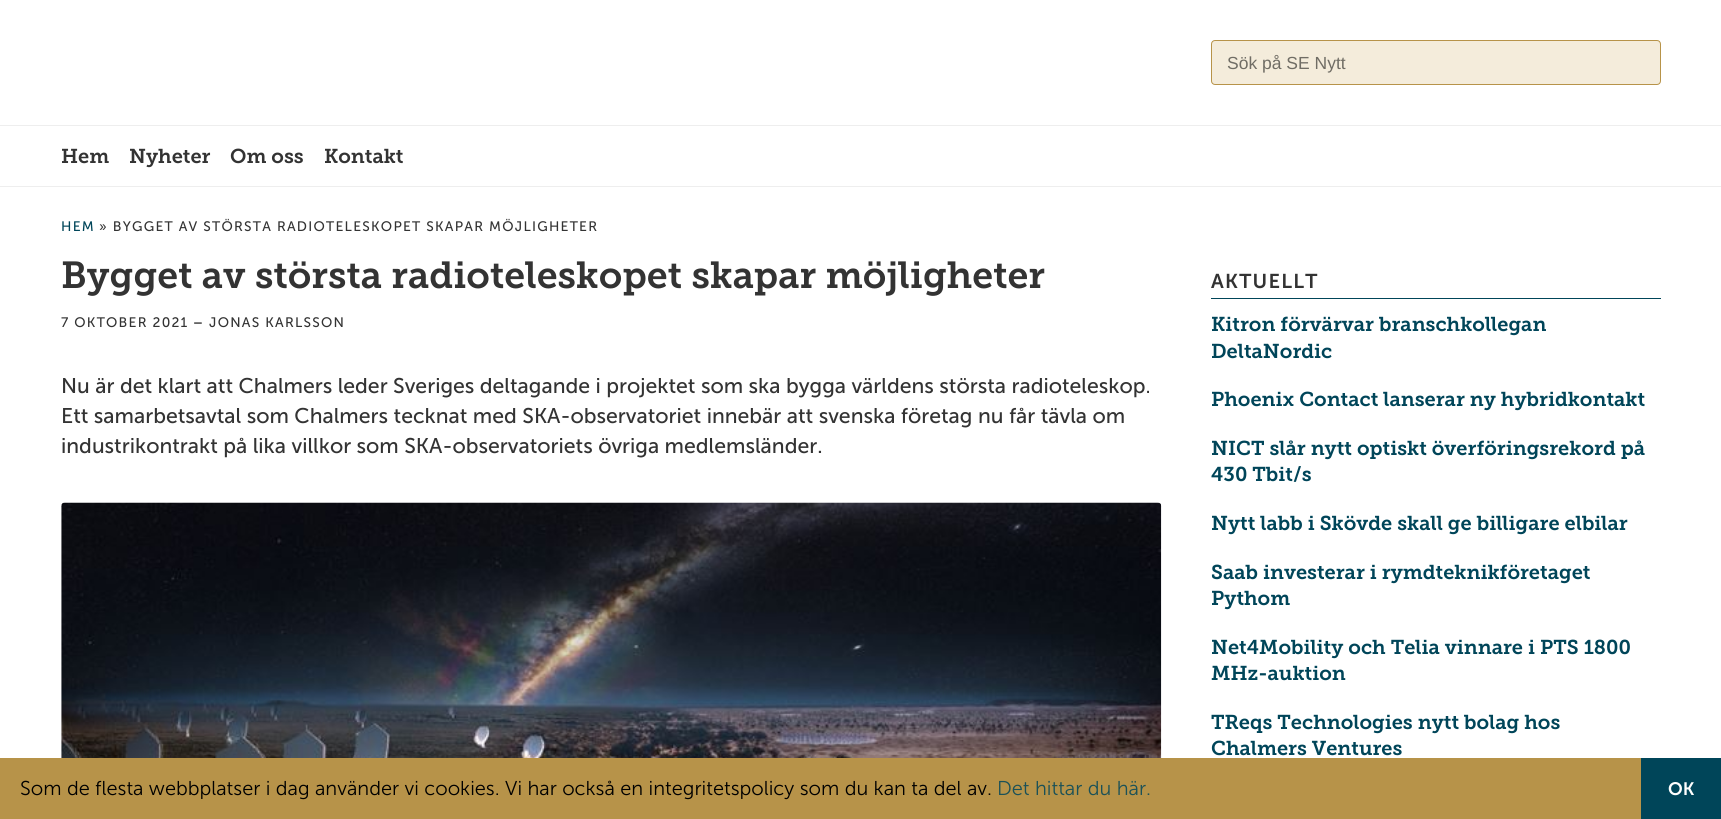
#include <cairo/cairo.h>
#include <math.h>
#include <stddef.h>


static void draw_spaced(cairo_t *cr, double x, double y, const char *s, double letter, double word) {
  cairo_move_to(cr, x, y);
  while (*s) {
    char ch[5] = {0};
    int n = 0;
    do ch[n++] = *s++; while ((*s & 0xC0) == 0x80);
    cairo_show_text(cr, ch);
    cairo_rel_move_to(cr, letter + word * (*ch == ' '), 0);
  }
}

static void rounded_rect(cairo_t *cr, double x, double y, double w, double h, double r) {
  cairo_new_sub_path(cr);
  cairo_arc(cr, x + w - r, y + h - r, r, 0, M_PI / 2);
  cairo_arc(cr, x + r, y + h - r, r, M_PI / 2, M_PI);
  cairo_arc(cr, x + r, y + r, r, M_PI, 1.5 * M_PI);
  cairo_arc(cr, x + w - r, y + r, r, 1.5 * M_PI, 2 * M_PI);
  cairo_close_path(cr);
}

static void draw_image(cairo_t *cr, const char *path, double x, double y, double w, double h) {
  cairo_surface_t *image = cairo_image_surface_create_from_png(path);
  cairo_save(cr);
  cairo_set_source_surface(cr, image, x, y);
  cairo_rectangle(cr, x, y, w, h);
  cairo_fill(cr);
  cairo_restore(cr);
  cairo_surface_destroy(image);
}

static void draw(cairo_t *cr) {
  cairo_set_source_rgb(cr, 1, 1, 1);
  cairo_paint(cr);
  cairo_set_source_rgb(cr, 244 / 255.0, 236 / 255.0, 219 / 255.0);
  rounded_rect(cr, 1211.5, 40.5, 449, 44, 3.5);
  cairo_fill_preserve(cr);
  cairo_set_source_rgb(cr, 183 / 255.0, 147 / 255.0, 73 / 255.0);
  cairo_set_line_width(cr, 1);
  cairo_stroke(cr);
  cairo_set_source_rgb(cr, 238 / 255.0, 238 / 255.0, 238 / 255.0);
  cairo_rectangle(cr, 0, 125, 1721, 1);
  cairo_fill(cr);
  cairo_rectangle(cr, 0, 186, 1721, 1);
  cairo_fill(cr);
  draw_image(cr, "images/1.png", 61, 502, 1101, 256);
  cairo_set_source_rgb(cr, 0, 69 / 255.0, 89 / 255.0);
  cairo_rectangle(cr, 1211, 298, 450, 1);
  cairo_fill(cr);
  cairo_set_source_rgb(cr, 183 / 255.0, 147 / 255.0, 73 / 255.0);
  cairo_rectangle(cr, 0, 758, 1641, 61);
  cairo_fill(cr);
  cairo_set_source_rgb(cr, 0, 69 / 255.0, 89 / 255.0);
  cairo_rectangle(cr, 1641, 758, 80, 61);
  cairo_fill(cr);
  cairo_select_font_face(cr, "Liberation Sans", CAIRO_FONT_SLANT_NORMAL, CAIRO_FONT_WEIGHT_NORMAL);
  cairo_set_font_size(cr, 17.5);
  cairo_set_source_rgb(cr, 112 / 255.0, 109 / 255.0, 101 / 255.0);
  cairo_move_to(cr, 1227, 69);
  cairo_show_text(cr, "Sök på SE Nytt");
  cairo_select_font_face(cr, "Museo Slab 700 SemiBold", CAIRO_FONT_SLANT_NORMAL, CAIRO_FONT_WEIGHT_NORMAL);
  cairo_set_font_size(cr, 20);
  cairo_set_source_rgb(cr, 51 / 255.0, 51 / 255.0, 51 / 255.0);
  cairo_move_to(cr, 61, 163);
  cairo_show_text(cr, "Hem");
  cairo_move_to(cr, 129, 163);
  cairo_show_text(cr, "Nyheter");
  cairo_move_to(cr, 230, 163);
  cairo_show_text(cr, "Om oss");
  cairo_move_to(cr, 324, 163);
  cairo_show_text(cr, "Kontakt");
  cairo_select_font_face(cr, "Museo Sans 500", CAIRO_FONT_SLANT_NORMAL, CAIRO_FONT_WEIGHT_NORMAL);
  cairo_set_font_size(cr, 13.75);
  cairo_set_source_rgb(cr, 0, 69 / 255.0, 89 / 255.0);
  draw_spaced(cr, 61, 231, "HEM", 1.25, 0);
  cairo_set_source_rgb(cr, 51 / 255.0, 51 / 255.0, 51 / 255.0);
  draw_spaced(cr, 99, 231, "» BYGGET AV STÖRSTA RADIOTELESKOPET SKAPAR MÖJLIGHETER", 1.25, 0);
  cairo_select_font_face(cr, "Museo Slab 700 SemiBold", CAIRO_FONT_SLANT_NORMAL, CAIRO_FONT_WEIGHT_NORMAL);
  cairo_set_font_size(cr, 37.5);
  cairo_move_to(cr, 61, 288);
  cairo_show_text(cr, "Bygget av största radioteleskopet skapar möjligheter");
  cairo_select_font_face(cr, "Museo Sans 500", CAIRO_FONT_SLANT_NORMAL, CAIRO_FONT_WEIGHT_NORMAL);
  cairo_set_font_size(cr, 13.75);
  draw_spaced(cr, 61, 327, "7 OKTOBER 2021", 1.25, 0);
  cairo_select_font_face(cr, "Museo Slab 700 SemiBold", CAIRO_FONT_SLANT_NORMAL, CAIRO_FONT_WEIGHT_NORMAL);
  draw_spaced(cr, 193, 327, "–", 1.25, 0);
  cairo_select_font_face(cr, "Museo Sans 500", CAIRO_FONT_SLANT_NORMAL, CAIRO_FONT_WEIGHT_NORMAL);
  draw_spaced(cr, 209, 327, "JONAS KARLSSON", 1.25, 0);
  cairo_set_font_size(cr, 21.25);
  cairo_move_to(cr, 61, 393);
  cairo_show_text(cr, "Nu är det klart att Chalmers leder Sveriges deltagande i projektet som ska bygga världens största radioteleskop.");
  cairo_move_to(cr, 61, 423);
  cairo_show_text(cr, "Ett samarbetsavtal som Chalmers tecknat med SKA-observatoriet innebär att svenska företag nu får tävla om");
  cairo_move_to(cr, 61, 453);
  cairo_show_text(cr, "industrikontrakt på lika villkor som SKA-observatoriets övriga medlemsländer.");
  cairo_select_font_face(cr, "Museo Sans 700 SemiBold", CAIRO_FONT_SLANT_NORMAL, CAIRO_FONT_WEIGHT_NORMAL);
  cairo_set_font_size(cr, 20);
  draw_spaced(cr, 1211, 288, "AKTUELLT", 1.25, 0);
  cairo_select_font_face(cr, "Museo Slab 700 SemiBold", CAIRO_FONT_SLANT_NORMAL, CAIRO_FONT_WEIGHT_NORMAL);
  cairo_set_source_rgb(cr, 0, 69 / 255.0, 89 / 255.0);
  cairo_move_to(cr, 1211, 331);
  cairo_show_text(cr, "Kitron förvärvar branschkollegan");
  cairo_move_to(cr, 1211, 358);
  cairo_show_text(cr, "DeltaNordic");
  cairo_move_to(cr, 1211, 406);
  cairo_show_text(cr, "Phoenix Contact lanserar ny hybridkontakt");
  cairo_move_to(cr, 1211, 455);
  cairo_show_text(cr, "NICT slår nytt optiskt överföringsrekord på");
  cairo_move_to(cr, 1211, 481);
  cairo_show_text(cr, "430 Tbit/s");
  cairo_move_to(cr, 1211, 530);
  cairo_show_text(cr, "Nytt labb i Skövde skall ge billigare elbilar");
  cairo_move_to(cr, 1211, 579);
  cairo_show_text(cr, "Saab investerar i rymdteknikföretaget");
  cairo_move_to(cr, 1211, 605);
  cairo_show_text(cr, "Pythom");
  cairo_move_to(cr, 1211, 654);
  cairo_show_text(cr, "Net4Mobility och Telia vinnare i PTS 1800");
  cairo_move_to(cr, 1211, 680);
  cairo_show_text(cr, "MHz-auktion");
  cairo_move_to(cr, 1211, 729);
  cairo_show_text(cr, "TReqs Technologies nytt bolag hos");
  cairo_move_to(cr, 1211, 755);
  cairo_show_text(cr, "Chalmers Ventures");
  cairo_select_font_face(cr, "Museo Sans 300 Light", CAIRO_FONT_SLANT_NORMAL, CAIRO_FONT_WEIGHT_NORMAL);
  cairo_set_source_rgb(cr, 0, 0, 0);
  cairo_move_to(cr, 20, 795);
  cairo_show_text(cr, "Som de flesta webbplatser i dag använder vi cookies. Vi har också en integritetspolicy som du kan ta del av.");
  cairo_set_source_rgb(cr, 27 / 255.0, 81 / 255.0, 87 / 255.0);
  cairo_move_to(cr, 997, 795);
  cairo_show_text(cr, "Det hittar du här.");
  cairo_select_font_face(cr, "Museo Sans 700 SemiBold", CAIRO_FONT_SLANT_NORMAL, CAIRO_FONT_WEIGHT_NORMAL);
  cairo_set_font_size(cr, 18);
  cairo_set_source_rgb(cr, 1, 1, 1);
  cairo_move_to(cr, 1668, 795);
  cairo_show_text(cr, "OK");
}

int main(void) {
  cairo_surface_t *surface = cairo_image_surface_create(CAIRO_FORMAT_RGB24, 1721, 819);
  cairo_t *cr = cairo_create(surface);
  cairo_font_options_t *options = cairo_font_options_create();
  cairo_font_options_set_hint_metrics(options, CAIRO_HINT_METRICS_OFF);
  cairo_font_options_set_hint_style(options, CAIRO_HINT_STYLE_NONE);
  cairo_set_font_options(cr, options);
  cairo_set_miter_limit(cr, 4);
  draw(cr);
  cairo_surface_write_to_png(surface, "out.png");
  cairo_font_options_destroy(options);
  cairo_destroy(cr);
  cairo_surface_destroy(surface);
  return 0;
}
